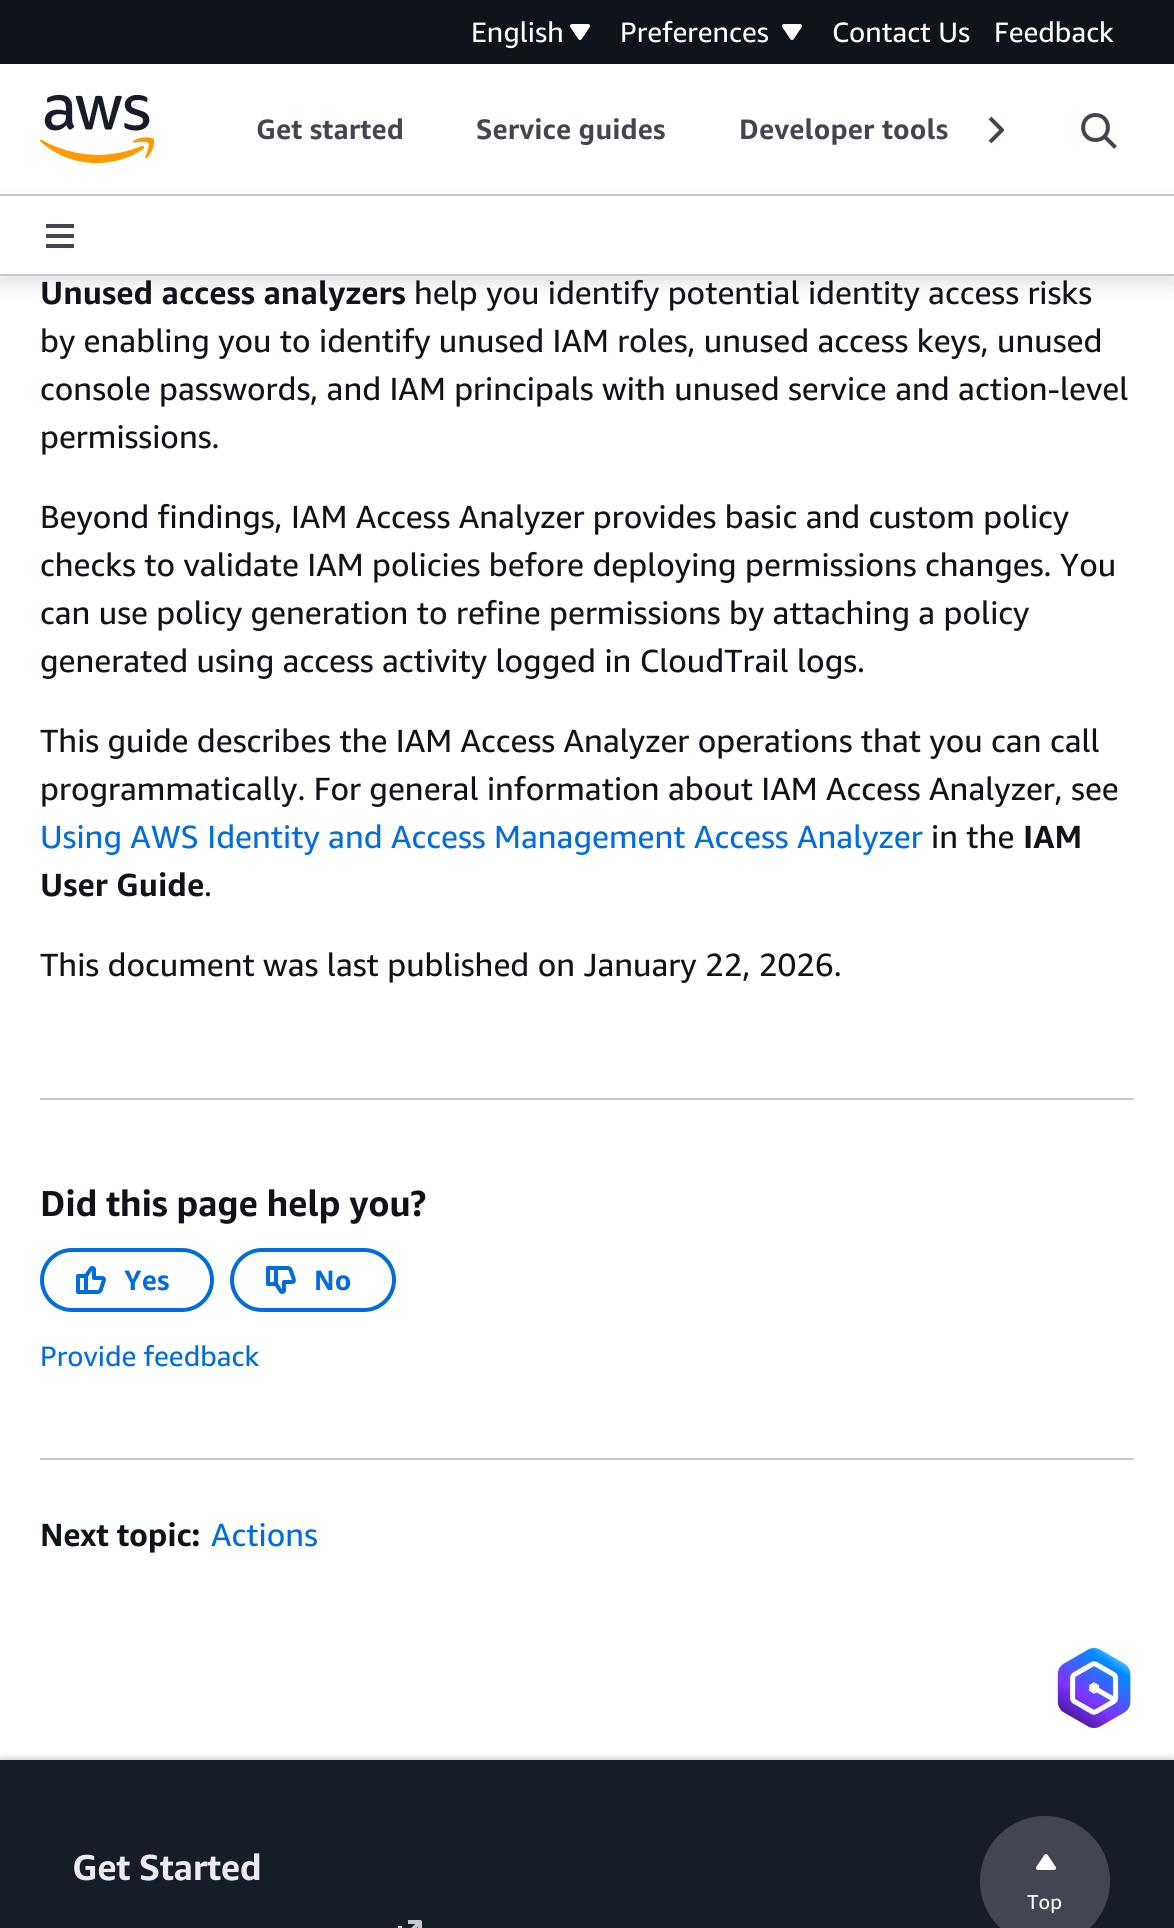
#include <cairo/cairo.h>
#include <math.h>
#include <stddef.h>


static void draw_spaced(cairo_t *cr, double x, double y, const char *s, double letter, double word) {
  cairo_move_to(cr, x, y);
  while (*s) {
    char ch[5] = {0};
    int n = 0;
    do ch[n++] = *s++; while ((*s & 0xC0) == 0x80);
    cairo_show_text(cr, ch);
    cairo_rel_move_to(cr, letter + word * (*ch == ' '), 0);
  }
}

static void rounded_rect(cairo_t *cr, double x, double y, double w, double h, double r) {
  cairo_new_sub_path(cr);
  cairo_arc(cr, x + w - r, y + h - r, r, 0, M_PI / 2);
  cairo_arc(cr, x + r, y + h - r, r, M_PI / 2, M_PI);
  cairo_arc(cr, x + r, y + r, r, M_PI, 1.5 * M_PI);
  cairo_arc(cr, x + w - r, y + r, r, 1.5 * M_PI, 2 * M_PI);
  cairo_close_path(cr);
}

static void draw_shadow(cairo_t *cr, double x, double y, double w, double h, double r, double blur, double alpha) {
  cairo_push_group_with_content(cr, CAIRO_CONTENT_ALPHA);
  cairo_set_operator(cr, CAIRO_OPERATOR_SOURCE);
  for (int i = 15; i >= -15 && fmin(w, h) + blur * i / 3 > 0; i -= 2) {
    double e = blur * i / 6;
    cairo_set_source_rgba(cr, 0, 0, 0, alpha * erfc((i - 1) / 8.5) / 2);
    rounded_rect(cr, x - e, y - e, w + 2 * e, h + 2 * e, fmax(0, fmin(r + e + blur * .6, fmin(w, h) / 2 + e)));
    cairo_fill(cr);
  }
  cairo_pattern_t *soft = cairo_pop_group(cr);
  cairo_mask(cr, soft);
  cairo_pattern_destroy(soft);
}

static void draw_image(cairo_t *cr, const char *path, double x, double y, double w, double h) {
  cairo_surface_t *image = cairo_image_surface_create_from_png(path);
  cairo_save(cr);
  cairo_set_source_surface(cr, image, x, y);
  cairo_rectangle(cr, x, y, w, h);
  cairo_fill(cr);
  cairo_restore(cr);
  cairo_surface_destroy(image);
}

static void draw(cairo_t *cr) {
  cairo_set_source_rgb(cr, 1, 1, 1);
  cairo_paint(cr);
  cairo_set_source_rgb(cr, 0, 7 / 255.0, 22 / 255.0);
  draw_shadow(cr, -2, 202, 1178, 84, 0, 8, 0.1);
  cairo_set_source_rgb(cr, 1, 1, 1);
  cairo_rectangle(cr, 2, 192, 1170, 2);
  cairo_fill(cr);
  cairo_set_source_rgb(cr, 198 / 255.0, 198 / 255.0, 205 / 255.0);
  cairo_rectangle(cr, 0, 194, 1174, 2);
  cairo_fill(cr);
  cairo_set_source_rgb(cr, 15 / 255.0, 20 / 255.0, 26 / 255.0);
  cairo_rectangle(cr, 0, 0, 1174, 64);
  cairo_fill(cr);
  cairo_set_source_rgb(cr, 1, 1, 1);
  cairo_new_path(cr);
  cairo_move_to(cr, 580, 38);
  cairo_line_to(cr, 588, 26);
  cairo_line_to(cr, 572, 26);
  cairo_close_path(cr);
  cairo_fill_preserve(cr);
  cairo_set_line_width(cr, 4);
  cairo_set_line_join(cr, CAIRO_LINE_JOIN_ROUND);
  cairo_stroke(cr);
  cairo_new_path(cr);
  cairo_move_to(cr, 792, 38);
  cairo_line_to(cr, 800, 26);
  cairo_line_to(cr, 784, 26);
  cairo_close_path(cr);
  cairo_fill_preserve(cr);
  cairo_stroke(cr);
  draw_image(cr, "images/1.png", 40, 94, 115, 70);
  cairo_new_path(cr);
  cairo_move_to(cr, 990, 118);
  cairo_line_to(cr, 1002, 130);
  cairo_line_to(cr, 990, 142);
  cairo_set_source_rgb(cr, 66 / 255.0, 70 / 255.0, 80 / 255.0);
  cairo_stroke(cr);
  cairo_new_path(cr);
  cairo_move_to(cr, 1105.5, 137.5);
  cairo_line_to(cr, 1115.5, 147.5);
  cairo_move_to(cr, 1095.5, 140);
  cairo_curve_to(cr, 1112, 140, 1112, 115, 1095.5, 115);
  cairo_curve_to(cr, 1079, 115, 1079, 140, 1095.5, 140);
  cairo_close_path(cr);
  cairo_stroke(cr);
  cairo_set_source_rgb(cr, 1, 1, 1);
  cairo_rectangle(cr, 0, 196, 1174, 78);
  cairo_fill(cr);
  cairo_set_source_rgb(cr, 198 / 255.0, 198 / 255.0, 205 / 255.0);
  cairo_rectangle(cr, 0, 274, 1174, 2);
  cairo_fill(cr);
  cairo_new_path(cr);
  cairo_move_to(cr, 74, 226);
  cairo_line_to(cr, 46, 226);
  cairo_move_to(cr, 74, 236);
  cairo_line_to(cr, 46, 236);
  cairo_move_to(cr, 74, 246);
  cairo_line_to(cr, 46, 246);
  cairo_set_source_rgb(cr, 66 / 255.0, 70 / 255.0, 80 / 255.0);
  cairo_stroke(cr);
  cairo_set_source_rgb(cr, 198 / 255.0, 198 / 255.0, 205 / 255.0);
  cairo_rectangle(cr, 40, 1098, 1094, 2);
  cairo_fill(cr);
  rounded_rect(cr, 42, 1250, 170, 60, 30);
  cairo_set_source_rgb(cr, 0, 108 / 255.0, 224 / 255.0);
  cairo_set_line_join(cr, CAIRO_LINE_JOIN_MITER);
  cairo_stroke(cr);
  draw_image(cr, "images/2.png", 76, 1266, 30, 28);
  rounded_rect(cr, 232, 1250, 162, 60, 30);
  cairo_stroke(cr);
  draw_image(cr, "images/3.png", 266, 1266, 30, 28);
  cairo_set_source_rgb(cr, 198 / 255.0, 198 / 255.0, 205 / 255.0);
  cairo_rectangle(cr, 40, 1458, 1094, 2);
  cairo_fill(cr);
  draw_image(cr, "images/4.png", 1057, 1648, 74, 80);
  cairo_set_source_rgb(cr, 0, 0, 0);
  draw_shadow(cr, 0, 1758, 1174, 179, 0, 3, 0.2);
  cairo_set_source_rgb(cr, 22 / 255.0, 29 / 255.0, 38 / 255.0);
  cairo_rectangle(cr, 0, 1760, 1174, 168);
  cairo_fill(cr);
  cairo_new_path(cr);
  cairo_move_to(cr, 420, 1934);
  cairo_line_to(cr, 420, 1922);
  cairo_line_to(cr, 408, 1922);
  cairo_move_to(cr, 420, 1922);
  cairo_line_to(cr, 408, 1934);
  cairo_move_to(cr, 400, 1926);
  cairo_line_to(cr, 400, 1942);
  cairo_line_to(cr, 416, 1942);
  cairo_set_source_rgb(cr, 198 / 255.0, 198 / 255.0, 205 / 255.0);
  cairo_set_line_join(cr, CAIRO_LINE_JOIN_ROUND);
  cairo_stroke(cr);
  cairo_set_source_rgb(cr, 66 / 255.0, 70 / 255.0, 80 / 255.0);
  cairo_arc(cr, 1045, 1881, 65, 0, 2 * M_PI);
  cairo_fill(cr);
  cairo_set_source_rgb(cr, 1, 1, 1);
  cairo_new_path(cr);
  cairo_move_to(cr, 1046, 1856);
  cairo_line_to(cr, 1054, 1868);
  cairo_line_to(cr, 1038, 1868);
  cairo_close_path(cr);
  cairo_fill_preserve(cr);
  cairo_stroke(cr);
  cairo_select_font_face(cr, "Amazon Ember", CAIRO_FONT_SLANT_NORMAL, CAIRO_FONT_WEIGHT_NORMAL);
  cairo_set_font_size(cr, 28);
  draw_spaced(cr, 471, 42, "English", 0.1, 0);
  cairo_move_to(cr, 620, 42);
  cairo_show_text(cr, "Preferences");
  cairo_move_to(cr, 832, 42);
  cairo_show_text(cr, "Contact Us");
  cairo_move_to(cr, 994, 42);
  cairo_show_text(cr, "Feedback");
  cairo_select_font_face(cr, "Amazon Ember", CAIRO_FONT_SLANT_NORMAL, CAIRO_FONT_WEIGHT_BOLD);
  cairo_set_source_rgb(cr, 66 / 255.0, 70 / 255.0, 80 / 255.0);
  draw_spaced(cr, 256, 139, "Get started", 0.1, 0);
  draw_spaced(cr, 476, 139, "Service guides", 0.1, 0);
  draw_spaced(cr, 739, 139, "Developer tools", 0.1, 0);
  cairo_set_font_size(cr, 32);
  cairo_set_source_rgb(cr, 15 / 255.0, 20 / 255.0, 26 / 255.0);
  cairo_move_to(cr, 40, 304);
  cairo_show_text(cr, "Unused access analyzers");
  cairo_select_font_face(cr, "Amazon Ember", CAIRO_FONT_SLANT_NORMAL, CAIRO_FONT_WEIGHT_NORMAL);
  cairo_move_to(cr, 414, 304);
  cairo_show_text(cr, "help you identify potential identity access risks");
  cairo_move_to(cr, 40, 352);
  cairo_show_text(cr, "by enabling you to identify unused IAM roles, unused access keys, unused");
  cairo_move_to(cr, 40, 400);
  cairo_show_text(cr, "console passwords, and IAM principals with unused service and action-level");
  cairo_move_to(cr, 40, 448);
  cairo_show_text(cr, "permissions.");
  cairo_move_to(cr, 40, 528);
  cairo_show_text(cr, "Beyond findings, IAM Access Analyzer provides basic and custom policy");
  cairo_move_to(cr, 40, 576);
  cairo_show_text(cr, "checks to validate IAM policies before deploying permissions changes. You");
  cairo_move_to(cr, 40, 624);
  cairo_show_text(cr, "can use policy generation to refine permissions by attaching a policy");
  cairo_move_to(cr, 40, 672);
  cairo_show_text(cr, "generated using access activity logged in CloudTrail logs.");
  cairo_move_to(cr, 40, 752);
  cairo_show_text(cr, "This guide describes the IAM Access Analyzer operations that you can call");
  cairo_move_to(cr, 40, 800);
  cairo_show_text(cr, "programmatically. For general information about IAM Access Analyzer, see");
  cairo_set_source_rgb(cr, 0, 108 / 255.0, 224 / 255.0);
  cairo_move_to(cr, 40, 848);
  cairo_show_text(cr, "Using AWS Identity and Access Management Access Analyzer");
  cairo_set_source_rgb(cr, 15 / 255.0, 20 / 255.0, 26 / 255.0);
  cairo_move_to(cr, 931, 848);
  cairo_show_text(cr, "in the");
  cairo_select_font_face(cr, "Amazon Ember", CAIRO_FONT_SLANT_NORMAL, CAIRO_FONT_WEIGHT_BOLD);
  cairo_move_to(cr, 1023, 848);
  cairo_show_text(cr, "IAM");
  cairo_move_to(cr, 40, 896);
  cairo_show_text(cr, "User Guide");
  cairo_select_font_face(cr, "Amazon Ember", CAIRO_FONT_SLANT_NORMAL, CAIRO_FONT_WEIGHT_NORMAL);
  cairo_move_to(cr, 204, 896);
  cairo_show_text(cr, ".");
  cairo_move_to(cr, 40, 976);
  cairo_show_text(cr, "This document was last published on January 22, 2026.");
  cairo_select_font_face(cr, "Amazon Ember", CAIRO_FONT_SLANT_NORMAL, CAIRO_FONT_WEIGHT_BOLD);
  cairo_set_font_size(cr, 36);
  draw_spaced(cr, 40, 1216, "Did this page help you?", -0.4, 0);
  cairo_set_font_size(cr, 28);
  cairo_set_source_rgb(cr, 0, 108 / 255.0, 224 / 255.0);
  draw_spaced(cr, 124, 1290, "Yes", 0.1, 0);
  draw_spaced(cr, 314, 1290, "No", 0.1, 0);
  cairo_select_font_face(cr, "Amazon Ember", CAIRO_FONT_SLANT_NORMAL, CAIRO_FONT_WEIGHT_NORMAL);
  cairo_move_to(cr, 40, 1366);
  cairo_show_text(cr, "Provide feedback");
  cairo_select_font_face(cr, "Amazon Ember", CAIRO_FONT_SLANT_NORMAL, CAIRO_FONT_WEIGHT_BOLD);
  cairo_set_font_size(cr, 32);
  cairo_set_source_rgb(cr, 15 / 255.0, 20 / 255.0, 26 / 255.0);
  draw_spaced(cr, 40, 1546, "Next topic:", -0.25, 0);
  cairo_select_font_face(cr, "Amazon Ember", CAIRO_FONT_SLANT_NORMAL, CAIRO_FONT_WEIGHT_NORMAL);
  cairo_set_source_rgb(cr, 0, 108 / 255.0, 224 / 255.0);
  cairo_move_to(cr, 211, 1546);
  cairo_show_text(cr, "Actions");
  cairo_select_font_face(cr, "Amazon Ember", CAIRO_FONT_SLANT_NORMAL, CAIRO_FONT_WEIGHT_BOLD);
  cairo_set_font_size(cr, 36);
  cairo_set_source_rgb(cr, 235 / 255.0, 235 / 255.0, 240 / 255.0);
  draw_spaced(cr, 72, 1880, "Get Started", -0.4, 0);
  cairo_select_font_face(cr, "Amazon Ember", CAIRO_FONT_SLANT_NORMAL, CAIRO_FONT_WEIGHT_NORMAL);
  cairo_set_font_size(cr, 20);
  cairo_set_source_rgb(cr, 1, 1, 1);
  draw_spaced(cr, 1027, 1909, "Top", 0.1, 0);
}

int main(void) {
  cairo_surface_t *surface = cairo_image_surface_create(CAIRO_FORMAT_RGB24, 1174, 1928);
  cairo_t *cr = cairo_create(surface);
  cairo_font_options_t *options = cairo_font_options_create();
  cairo_font_options_set_hint_metrics(options, CAIRO_HINT_METRICS_OFF);
  cairo_font_options_set_hint_style(options, CAIRO_HINT_STYLE_NONE);
  cairo_set_font_options(cr, options);
  cairo_set_miter_limit(cr, 4);
  draw(cr);
  cairo_surface_write_to_png(surface, "out.png");
  cairo_font_options_destroy(options);
  cairo_destroy(cr);
  cairo_surface_destroy(surface);
  return 0;
}
